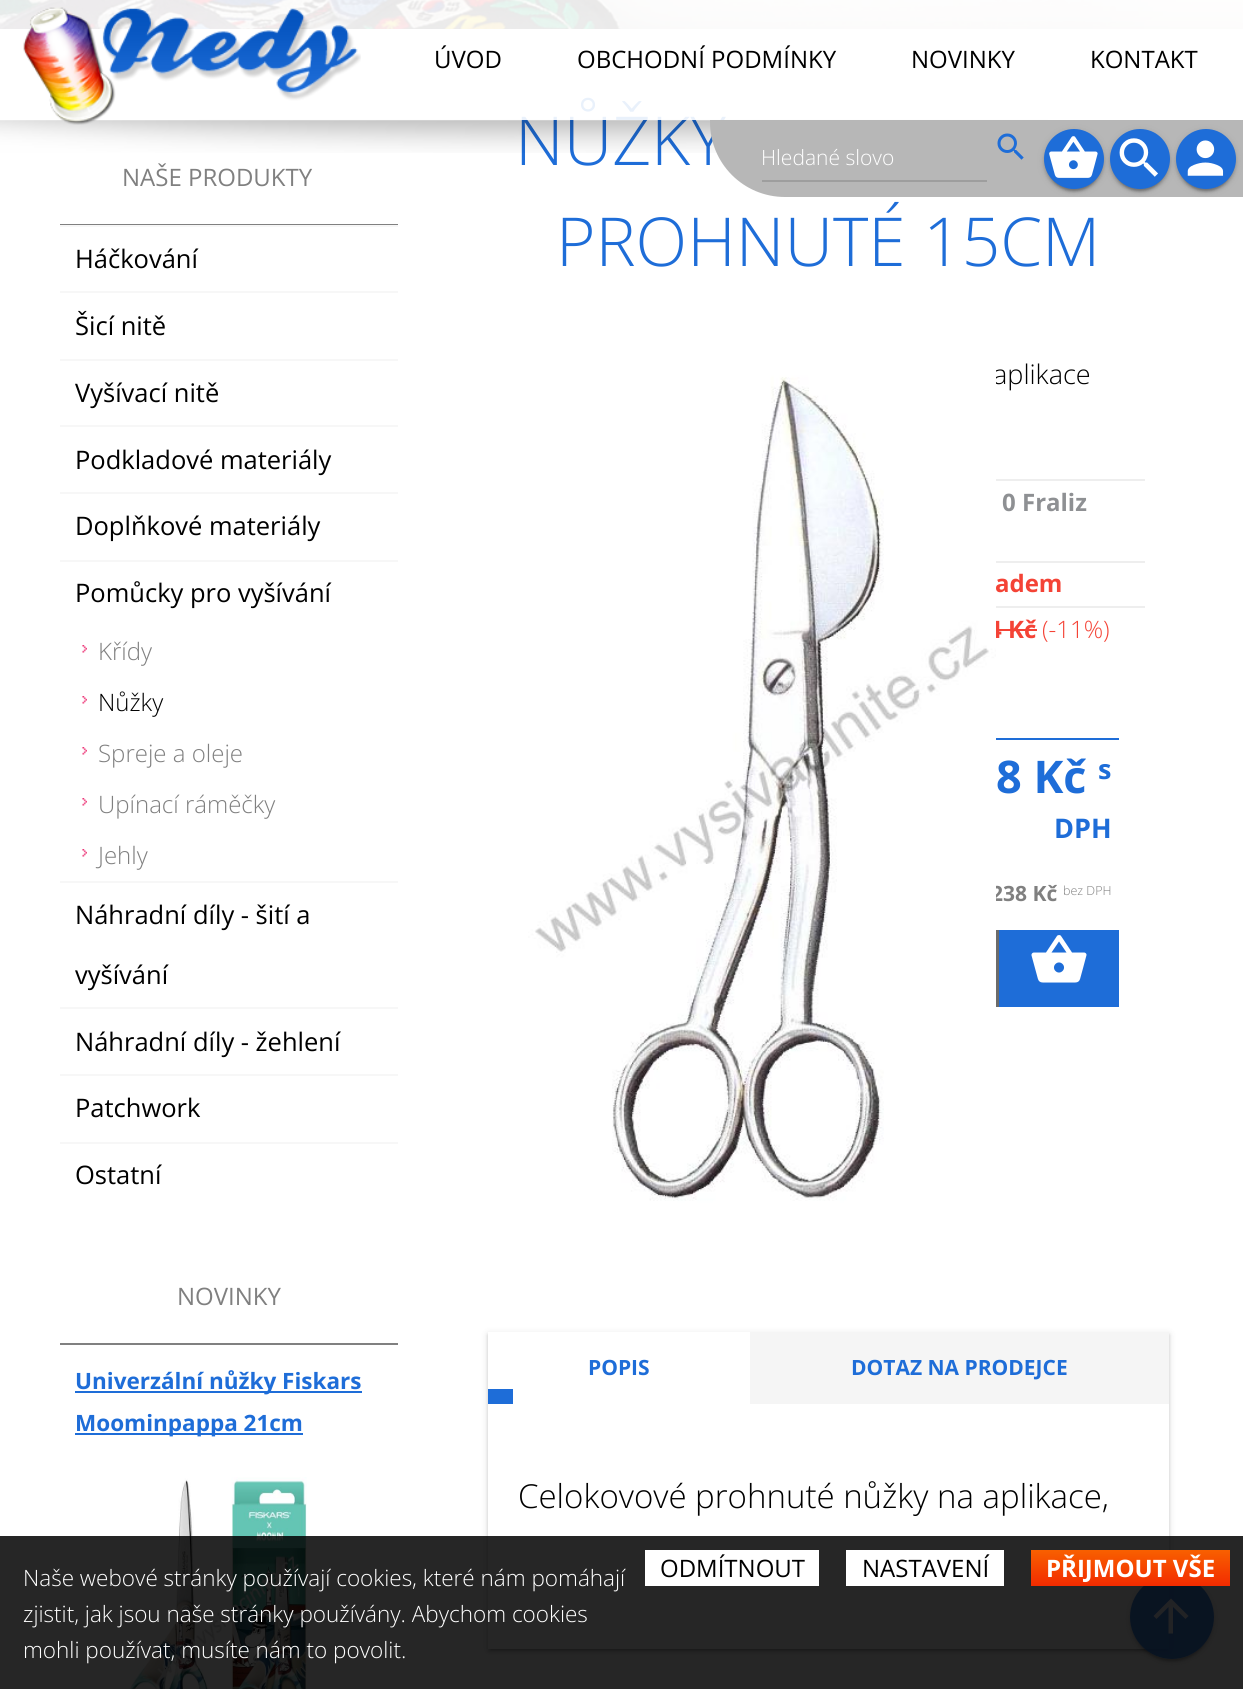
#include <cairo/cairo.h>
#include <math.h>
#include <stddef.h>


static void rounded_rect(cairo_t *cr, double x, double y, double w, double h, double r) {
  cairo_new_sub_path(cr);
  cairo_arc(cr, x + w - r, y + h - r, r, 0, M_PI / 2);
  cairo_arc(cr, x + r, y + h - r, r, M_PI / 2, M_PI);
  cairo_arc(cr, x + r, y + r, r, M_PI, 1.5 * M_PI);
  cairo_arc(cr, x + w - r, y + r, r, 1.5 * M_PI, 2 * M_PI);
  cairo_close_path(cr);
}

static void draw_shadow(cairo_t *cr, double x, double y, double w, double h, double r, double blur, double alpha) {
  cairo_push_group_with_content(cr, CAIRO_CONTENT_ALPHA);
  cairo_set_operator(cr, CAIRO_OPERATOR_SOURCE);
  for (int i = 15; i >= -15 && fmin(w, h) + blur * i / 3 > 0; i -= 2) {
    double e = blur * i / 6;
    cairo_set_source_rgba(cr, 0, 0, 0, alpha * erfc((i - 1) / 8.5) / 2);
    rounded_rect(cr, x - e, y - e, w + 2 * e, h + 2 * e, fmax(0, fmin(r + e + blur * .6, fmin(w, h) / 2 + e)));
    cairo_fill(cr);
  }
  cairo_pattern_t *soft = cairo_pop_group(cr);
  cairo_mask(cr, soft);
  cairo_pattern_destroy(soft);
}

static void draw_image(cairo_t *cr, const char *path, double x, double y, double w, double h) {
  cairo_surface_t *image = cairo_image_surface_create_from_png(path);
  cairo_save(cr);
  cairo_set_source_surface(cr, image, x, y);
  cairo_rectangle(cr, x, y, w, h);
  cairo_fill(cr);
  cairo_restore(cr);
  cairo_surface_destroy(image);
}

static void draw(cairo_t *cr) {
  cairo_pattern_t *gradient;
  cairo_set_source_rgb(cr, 1, 1, 1);
  cairo_paint(cr);
  draw_image(cr, "images/1.png", 0, 0, 1243, 29);
  gradient = cairo_pattern_create_linear(622, -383, 622, 225);
  cairo_pattern_add_color_stop_rgba(gradient, 0, 241 / 255.0, 241 / 255.0, 241 / 255.0, 0);
  cairo_pattern_add_color_stop_rgba(gradient, 0.64, 241 / 255.0, 241 / 255.0, 241 / 255.0, 0);
  cairo_pattern_add_color_stop_rgba(gradient, 1, 241 / 255.0, 241 / 255.0, 241 / 255.0, 1);
  cairo_set_source(cr, gradient);
  cairo_pattern_destroy(gradient);
  cairo_rectangle(cr, 0, 11, 665, 18);
  cairo_fill(cr);
  draw_image(cr, "images/2.png", 62, 0, 43, 5);
  cairo_set_source_rgb(cr, 0, 0, 0);
  draw_shadow(cr, 0, 29, 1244, 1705, 0, 15, 0.15);
  cairo_set_source_rgb(cr, 1, 1, 1);
  cairo_rectangle(cr, 0, 29, 1243, 1660);
  cairo_fill(cr);
  cairo_set_source_rgb(cr, 128 / 255.0, 128 / 255.0, 128 / 255.0);
  cairo_rectangle(cr, 60, 224, 338, 1);
  cairo_fill(cr);
  cairo_set_source_rgb(cr, 247 / 255.0, 247 / 255.0, 247 / 255.0);
  cairo_rectangle(cr, 60, 225, 338, 2);
  cairo_fill(cr);
  cairo_rectangle(cr, 60, 291, 338, 2);
  cairo_fill(cr);
  cairo_rectangle(cr, 60, 359, 338, 2);
  cairo_fill(cr);
  cairo_rectangle(cr, 60, 425, 338, 2);
  cairo_fill(cr);
  cairo_rectangle(cr, 60, 492, 338, 2);
  cairo_fill(cr);
  cairo_rectangle(cr, 60, 560, 338, 2);
  cairo_fill(cr);
  draw_image(cr, "images/5.png", 82, 645, 5, 8);
  draw_image(cr, "images/5.png", 82, 696, 5, 8);
  draw_image(cr, "images/5.png", 82, 747, 5, 8);
  draw_image(cr, "images/5.png", 82, 798, 5, 8);
  draw_image(cr, "images/5.png", 82, 849, 5, 8);
  cairo_rectangle(cr, 60, 881, 338, 2);
  cairo_fill(cr);
  cairo_rectangle(cr, 60, 1007, 338, 2);
  cairo_fill(cr);
  cairo_rectangle(cr, 60, 1074, 338, 2);
  cairo_fill(cr);
  cairo_rectangle(cr, 60, 1142, 338, 2);
  cairo_fill(cr);
  cairo_set_source_rgb(cr, 128 / 255.0, 128 / 255.0, 128 / 255.0);
  cairo_rectangle(cr, 60, 1343, 338, 2);
  cairo_fill(cr);
  cairo_set_source_rgb(cr, 30 / 255.0, 109 / 255.0, 216 / 255.0);
  cairo_rectangle(cr, 75, 1391, 287, 2);
  cairo_fill(cr);
  cairo_rectangle(cr, 75, 1433, 228, 2);
  cairo_fill(cr);
  draw_image(cr, "images/6.png", 129, 1477, 178, 212);
  cairo_set_source_rgb(cr, 238 / 255.0, 238 / 255.0, 238 / 255.0);
  cairo_rectangle(cr, 996, 479, 149, 2);
  cairo_fill(cr);
  cairo_rectangle(cr, 996, 561, 149, 2);
  cairo_fill(cr);
  cairo_rectangle(cr, 996, 606, 149, 2);
  cairo_fill(cr);
  cairo_set_source_rgb(cr, 244 / 255.0, 67 / 255.0, 54 / 255.0);
  cairo_rectangle(cr, 996, 629, 41, 2);
  cairo_fill(cr);
  cairo_set_source_rgb(cr, 30 / 255.0, 109 / 255.0, 216 / 255.0);
  cairo_rectangle(cr, 996, 738, 123, 2);
  cairo_fill(cr);
  cairo_set_source_rgb(cr, 107 / 255.0, 107 / 255.0, 107 / 255.0);
  cairo_rectangle(cr, 996, 930, 3, 77);
  cairo_fill(cr);
  cairo_set_source_rgb(cr, 30 / 255.0, 109 / 255.0, 216 / 255.0);
  cairo_rectangle(cr, 999, 930, 120, 77);
  cairo_fill(cr);
  draw_image(cr, "images/8.png", 1031, 935, 56, 48);
  cairo_set_source_rgb(cr, 0, 0, 0);
  draw_shadow(cr, 491, 1340, 675, 310, 0, 1, 0.2);
  draw_shadow(cr, 488, 1334, 681, 316, 0, 4, 0.12);
  draw_shadow(cr, 488, 1335, 681, 317, 0, 1.5, 0.14);
  cairo_set_source_rgb(cr, 245 / 255.0, 245 / 255.0, 245 / 255.0);
  cairo_rectangle(cr, 750, 1332, 419, 72);
  cairo_fill(cr);
  cairo_set_source_rgb(cr, 1, 1, 1);
  cairo_rectangle(cr, 488, 1332, 262, 72);
  cairo_fill(cr);
  cairo_set_source_rgb(cr, 30 / 255.0, 109 / 255.0, 216 / 255.0);
  cairo_rectangle(cr, 488, 1389, 25, 15);
  cairo_fill(cr);
  cairo_set_source_rgb(cr, 1, 1, 1);
  cairo_rectangle(cr, 488, 1404, 681, 245);
  cairo_fill(cr);
  cairo_save(cr);
  cairo_set_fill_rule(cr, CAIRO_FILL_RULE_EVEN_ODD);
  cairo_new_path(cr);
  cairo_move_to(cr, 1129, 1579);
  cairo_line_to(cr, 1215, 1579);
  cairo_line_to(cr, 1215, 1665);
  cairo_line_to(cr, 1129, 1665);
  cairo_close_path(cr);
  cairo_move_to(cr, 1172, 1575);
  cairo_curve_to(cr, 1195, 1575, 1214, 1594, 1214, 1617);
  cairo_curve_to(cr, 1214, 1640, 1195, 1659, 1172, 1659);
  cairo_curve_to(cr, 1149, 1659, 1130, 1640, 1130, 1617);
  cairo_curve_to(cr, 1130, 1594, 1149, 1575, 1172, 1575);
  cairo_close_path(cr);
  cairo_clip(cr);
  cairo_set_source_rgb(cr, 0, 0, 0);
  draw_shadow(cr, 1133, 1583, 78, 78, 39, 1, 0.17);
  cairo_restore(cr);
  cairo_save(cr);
  cairo_set_fill_rule(cr, CAIRO_FILL_RULE_EVEN_ODD);
  cairo_new_path(cr);
  cairo_move_to(cr, 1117, 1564);
  cairo_line_to(cr, 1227, 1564);
  cairo_line_to(cr, 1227, 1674);
  cairo_line_to(cr, 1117, 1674);
  cairo_close_path(cr);
  cairo_move_to(cr, 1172, 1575);
  cairo_curve_to(cr, 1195, 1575, 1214, 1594, 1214, 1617);
  cairo_curve_to(cr, 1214, 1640, 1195, 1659, 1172, 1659);
  cairo_curve_to(cr, 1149, 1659, 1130, 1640, 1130, 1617);
  cairo_curve_to(cr, 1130, 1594, 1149, 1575, 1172, 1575);
  cairo_close_path(cr);
  cairo_clip(cr);
  cairo_set_source_rgb(cr, 0, 0, 0);
  draw_shadow(cr, 1130, 1577, 84, 84, 42, 4, 0.1);
  cairo_restore(cr);
  cairo_save(cr);
  cairo_set_fill_rule(cr, CAIRO_FILL_RULE_EVEN_ODD);
  cairo_new_path(cr);
  cairo_move_to(cr, 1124, 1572);
  cairo_line_to(cr, 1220, 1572);
  cairo_line_to(cr, 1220, 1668);
  cairo_line_to(cr, 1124, 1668);
  cairo_close_path(cr);
  cairo_move_to(cr, 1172, 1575);
  cairo_curve_to(cr, 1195, 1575, 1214, 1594, 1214, 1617);
  cairo_curve_to(cr, 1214, 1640, 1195, 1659, 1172, 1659);
  cairo_curve_to(cr, 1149, 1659, 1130, 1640, 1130, 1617);
  cairo_curve_to(cr, 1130, 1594, 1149, 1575, 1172, 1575);
  cairo_close_path(cr);
  cairo_clip(cr);
  cairo_set_source_rgb(cr, 0, 0, 0);
  draw_shadow(cr, 1130, 1578, 84, 84, 42, 1.5, 0.12);
  cairo_restore(cr);
  cairo_set_source_rgba(cr, 30 / 255.0, 109 / 255.0, 216 / 255.0, 0.85);
  cairo_arc(cr, 1172, 1617, 42, 0, 2 * M_PI);
  cairo_fill(cr);
  cairo_set_source_rgba(cr, 1, 1, 1, 0.85);
  cairo_new_path(cr);
  cairo_move_to(cr, 1153.5, 1616);
  cairo_line_to(cr, 1171, 1598.5);
  cairo_line_to(cr, 1188.5, 1616);
  cairo_line_to(cr, 1185.5, 1619);
  cairo_line_to(cr, 1173, 1607);
  cairo_line_to(cr, 1173, 1633.5);
  cairo_line_to(cr, 1168.5, 1633.5);
  cairo_line_to(cr, 1168.5, 1607);
  cairo_line_to(cr, 1156.5, 1619);
  cairo_close_path(cr);
  cairo_fill(cr);
  cairo_set_source_rgba(cr, 0, 0, 0, 0.85);
  cairo_rectangle(cr, 0, 1536, 1243, 153);
  cairo_fill(cr);
  cairo_set_source_rgb(cr, 1, 1, 1);
  cairo_rectangle(cr, 645, 1550, 174, 36);
  cairo_fill(cr);
  cairo_rectangle(cr, 846, 1550, 158, 36);
  cairo_fill(cr);
  gradient = cairo_pattern_create_linear(1130, 1550, 1130, 1586);
  cairo_pattern_add_color_stop_rgba(gradient, 0, 248 / 255.0, 96 / 255.0, 0, 1);
  cairo_pattern_add_color_stop_rgba(gradient, 1, 243 / 255.0, 43 / 255.0, 0, 1);
  cairo_set_source(cr, gradient);
  cairo_pattern_destroy(gradient);
  cairo_rectangle(cr, 1031, 1550, 199, 36);
  cairo_fill(cr);
  cairo_select_font_face(cr, "Open Sans", CAIRO_FONT_SLANT_NORMAL, CAIRO_FONT_WEIGHT_NORMAL);
  cairo_set_font_size(cr, 24);
  cairo_set_source_rgb(cr, 128 / 255.0, 128 / 255.0, 128 / 255.0);
  cairo_move_to(cr, 122, 186);
  cairo_show_text(cr, "NAŠE PRODUKTY");
  cairo_set_font_size(cr, 25.5);
  cairo_set_source_rgb(cr, 0, 0, 0);
  cairo_move_to(cr, 75, 268);
  cairo_show_text(cr, "Háčkování");
  cairo_move_to(cr, 75, 335);
  cairo_show_text(cr, "Šicí nitě");
  cairo_move_to(cr, 75, 402);
  cairo_show_text(cr, "Vyšívací nitě");
  cairo_move_to(cr, 75, 469);
  cairo_show_text(cr, "Podkladové materiály");
  cairo_move_to(cr, 75, 535);
  cairo_show_text(cr, "Doplňkové materiály");
  cairo_move_to(cr, 75, 602);
  cairo_show_text(cr, "Pomůcky pro vyšívání");
  cairo_select_font_face(cr, "Open Sans Light", CAIRO_FONT_SLANT_NORMAL, CAIRO_FONT_WEIGHT_NORMAL);
  cairo_set_font_size(cr, 24);
  cairo_set_source_rgb(cr, 128 / 255.0, 128 / 255.0, 128 / 255.0);
  cairo_move_to(cr, 98, 660);
  cairo_show_text(cr, "Křídy");
  cairo_set_source_rgb(cr, 0, 0, 0);
  cairo_move_to(cr, 98, 711);
  cairo_show_text(cr, "Nůžky");
  cairo_set_source_rgb(cr, 128 / 255.0, 128 / 255.0, 128 / 255.0);
  cairo_move_to(cr, 98, 762);
  cairo_show_text(cr, "Spreje a oleje");
  cairo_move_to(cr, 98, 813);
  cairo_show_text(cr, "Upínací ráměčky");
  cairo_move_to(cr, 98, 864);
  cairo_show_text(cr, "Jehly");
  cairo_select_font_face(cr, "Open Sans", CAIRO_FONT_SLANT_NORMAL, CAIRO_FONT_WEIGHT_NORMAL);
  cairo_set_font_size(cr, 25.5);
  cairo_set_source_rgb(cr, 0, 0, 0);
  cairo_move_to(cr, 75, 924);
  cairo_show_text(cr, "Náhradní díly - šití a");
  cairo_move_to(cr, 75, 984);
  cairo_show_text(cr, "vyšívání");
  cairo_move_to(cr, 75, 1051);
  cairo_show_text(cr, "Náhradní díly - žehlení");
  cairo_move_to(cr, 75, 1117);
  cairo_show_text(cr, "Patchwork");
  cairo_move_to(cr, 75, 1184);
  cairo_show_text(cr, "Ostatní");
  cairo_set_font_size(cr, 24);
  cairo_set_source_rgb(cr, 128 / 255.0, 128 / 255.0, 128 / 255.0);
  cairo_move_to(cr, 177, 1305);
  cairo_show_text(cr, "NOVINKY");
  cairo_select_font_face(cr, "Open Sans", CAIRO_FONT_SLANT_NORMAL, CAIRO_FONT_WEIGHT_BOLD);
  cairo_set_font_size(cr, 22.5);
  cairo_set_source_rgb(cr, 30 / 255.0, 109 / 255.0, 216 / 255.0);
  cairo_move_to(cr, 75, 1389);
  cairo_show_text(cr, "Univerzální nůžky Fiskars");
  cairo_move_to(cr, 75, 1431);
  cairo_show_text(cr, "Moominpappa 21cm");
  cairo_select_font_face(cr, "Open Sans Light", CAIRO_FONT_SLANT_NORMAL, CAIRO_FONT_WEIGHT_NORMAL);
  cairo_set_font_size(cr, 67.5);
  cairo_move_to(cr, 515, 165);
  cairo_show_text(cr, "NŮŽKY");
  draw_image(cr, "images/3.png", 0, 119, 1048, 34);
  cairo_set_source_rgba(cr, 1, 1, 1, 0.9);
  cairo_rectangle(cr, 0, 0, 1243, 120);
  cairo_fill(cr);
  cairo_select_font_face(cr, "Open Sans", CAIRO_FONT_SLANT_NORMAL, CAIRO_FONT_WEIGHT_NORMAL);
  cairo_set_font_size(cr, 24);
  cairo_set_source_rgb(cr, 0, 0, 0);
  cairo_move_to(cr, 1090, 68);
  cairo_show_text(cr, "KONTAKT");
  cairo_move_to(cr, 911, 68);
  cairo_show_text(cr, "NOVINKY");
  cairo_move_to(cr, 577, 68);
  cairo_show_text(cr, "OBCHODNÍ PODMÍNKY");
  cairo_move_to(cr, 434, 68);
  cairo_show_text(cr, "ÚVOD");
  draw_image(cr, "images/4.png", 23, 7, 338, 118);
  cairo_select_font_face(cr, "Open Sans Light", CAIRO_FONT_SLANT_NORMAL, CAIRO_FONT_WEIGHT_NORMAL);
  cairo_set_font_size(cr, 67.5);
  cairo_set_source_rgb(cr, 30 / 255.0, 109 / 255.0, 216 / 255.0);
  cairo_move_to(cr, 556, 266);
  cairo_show_text(cr, "PROHNUTÉ 15CM");
  cairo_set_font_size(cr, 27);
  cairo_set_source_rgb(cr, 0, 0, 0);
  cairo_move_to(cr, 993, 384);
  cairo_show_text(cr, "aplikace");
  cairo_select_font_face(cr, "Open Sans", CAIRO_FONT_SLANT_NORMAL, CAIRO_FONT_WEIGHT_BOLD);
  cairo_set_font_size(cr, 24);
  cairo_set_source_rgb(cr, 142 / 255.0, 144 / 255.0, 147 / 255.0);
  cairo_move_to(cr, 1002, 511);
  cairo_show_text(cr, "0 Fraliz");
  cairo_set_source_rgb(cr, 244 / 255.0, 67 / 255.0, 54 / 255.0);
  cairo_move_to(cr, 995, 592);
  cairo_show_text(cr, "adem");
  cairo_move_to(cr, 988, 638);
  cairo_show_text(cr, "4 Kč");
  cairo_select_font_face(cr, "Open Sans Light", CAIRO_FONT_SLANT_NORMAL, CAIRO_FONT_WEIGHT_NORMAL);
  cairo_move_to(cr, 1042, 638);
  cairo_show_text(cr, "(-11%)");
  cairo_select_font_face(cr, "Open Sans", CAIRO_FONT_SLANT_NORMAL, CAIRO_FONT_WEIGHT_BOLD);
  cairo_set_font_size(cr, 45);
  cairo_set_source_rgb(cr, 30 / 255.0, 109 / 255.0, 216 / 255.0);
  cairo_move_to(cr, 996, 793);
  cairo_show_text(cr, "8 Kč");
  cairo_set_font_size(cr, 27);
  cairo_move_to(cr, 1098, 779);
  cairo_show_text(cr, "s");
  cairo_move_to(cr, 1054, 838);
  cairo_show_text(cr, "DPH");
  cairo_set_font_size(cr, 21);
  cairo_set_source_rgb(cr, 128 / 255.0, 128 / 255.0, 128 / 255.0);
  cairo_move_to(cr, 991, 901);
  cairo_show_text(cr, "238 Kč");
  draw_image(cr, "images/7.png", 528, 321, 468, 936);
  cairo_select_font_face(cr, "Open Sans Light", CAIRO_FONT_SLANT_NORMAL, CAIRO_FONT_WEIGHT_NORMAL);
  cairo_set_font_size(cr, 12.5);
  cairo_move_to(cr, 1063, 895);
  cairo_show_text(cr, "bez DPH");
  cairo_select_font_face(cr, "Open Sans", CAIRO_FONT_SLANT_NORMAL, CAIRO_FONT_WEIGHT_BOLD);
  cairo_set_font_size(cr, 21);
  cairo_set_source_rgb(cr, 30 / 255.0, 109 / 255.0, 216 / 255.0);
  cairo_move_to(cr, 588, 1375);
  cairo_show_text(cr, "POPIS");
  cairo_move_to(cr, 851, 1375);
  cairo_show_text(cr, "DOTAZ NA PRODEJCE");
  cairo_select_font_face(cr, "Open Sans Light", CAIRO_FONT_SLANT_NORMAL, CAIRO_FONT_WEIGHT_NORMAL);
  cairo_set_font_size(cr, 33);
  cairo_set_source_rgb(cr, 0, 0, 0);
  cairo_move_to(cr, 518, 1508);
  cairo_show_text(cr, "Celokovové prohnuté nůžky na aplikace,");
  cairo_set_source_rgb(cr, 183 / 255.0, 183 / 255.0, 183 / 255.0);
  cairo_new_path(cr);
  cairo_move_to(cr, 710, 120);
  cairo_line_to(cr, 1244, 120);
  cairo_line_to(cr, 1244, 197);
  cairo_line_to(cr, 785, 197);
  cairo_curve_to(cr, 743.5, 197, 710, 163.5, 710, 122);
  cairo_close_path(cr);
  cairo_fill(cr);
  cairo_set_source_rgb(cr, 158 / 255.0, 158 / 255.0, 158 / 255.0);
  cairo_rectangle(cr, 762, 180, 225, 2);
  cairo_fill(cr);
  cairo_set_font_size(cr, 21);
  cairo_set_source_rgb(cr, 1, 1, 1);
  cairo_move_to(cr, 761, 165);
  cairo_show_text(cr, "Hledané slovo");
  draw_image(cr, "images/9.png", 997, 133, 27, 27);
  cairo_set_source_rgb(cr, 0, 0, 0);
  draw_shadow(cr, 1047, 137, 54, 54, 27, 1, 0.2);
  draw_shadow(cr, 1044, 131, 60, 60, 30, 4, 0.12);
  draw_shadow(cr, 1044, 132, 60, 60, 30, 1.5, 0.14);
  cairo_set_source_rgb(cr, 30 / 255.0, 109 / 255.0, 216 / 255.0);
  cairo_arc(cr, 1074, 159, 30, 0, 2 * M_PI);
  cairo_fill(cr);
  draw_image(cr, "images/10.png", 1049, 136, 49, 42);
  cairo_set_source_rgb(cr, 0, 0, 0);
  draw_shadow(cr, 1113, 137, 54, 54, 27, 1, 0.2);
  draw_shadow(cr, 1110, 131, 60, 60, 30, 4, 0.12);
  draw_shadow(cr, 1110, 132, 60, 60, 30, 1.5, 0.14);
  cairo_set_source_rgb(cr, 30 / 255.0, 109 / 255.0, 216 / 255.0);
  cairo_arc(cr, 1140, 159, 30, 0, 2 * M_PI);
  cairo_fill(cr);
  draw_image(cr, "images/11.png", 1119, 138, 39, 39);
  cairo_set_source_rgb(cr, 0, 0, 0);
  draw_shadow(cr, 1179, 137, 54, 54, 27, 1, 0.2);
  draw_shadow(cr, 1176, 131, 60, 60, 30, 4, 0.12);
  draw_shadow(cr, 1176, 132, 60, 60, 30, 1.5, 0.14);
  cairo_set_source_rgb(cr, 30 / 255.0, 109 / 255.0, 216 / 255.0);
  cairo_arc(cr, 1206, 159, 30, 0, 2 * M_PI);
  cairo_fill(cr);
  draw_image(cr, "images/12.png", 1187, 140, 37, 36);
  cairo_set_font_size(cr, 22.5);
  cairo_set_source_rgb(cr, 1, 1, 1);
  cairo_move_to(cr, 23, 1586);
  cairo_show_text(cr, "Naše webové stránky používají cookies, které nám pomáhají");
  cairo_move_to(cr, 23, 1622);
  cairo_show_text(cr, "zjistit, jak jsou naše stránky používány. Abychom cookies");
  cairo_move_to(cr, 23, 1658);
  cairo_show_text(cr, "mohli používat, musíte nám to povolit.");
  cairo_select_font_face(cr, "Open Sans", CAIRO_FONT_SLANT_NORMAL, CAIRO_FONT_WEIGHT_NORMAL);
  cairo_set_font_size(cr, 24);
  cairo_set_source_rgb(cr, 0, 0, 0);
  cairo_move_to(cr, 660, 1577);
  cairo_show_text(cr, "ODMÍTNOUT");
  cairo_move_to(cr, 862, 1577);
  cairo_show_text(cr, "NASTAVENÍ");
  cairo_select_font_face(cr, "Open Sans", CAIRO_FONT_SLANT_NORMAL, CAIRO_FONT_WEIGHT_BOLD);
  cairo_set_source_rgb(cr, 1, 1, 1);
  cairo_move_to(cr, 1046, 1577);
  cairo_show_text(cr, "PŘIJMOUT VŠE");
}

int main(void) {
  cairo_surface_t *surface = cairo_image_surface_create(CAIRO_FORMAT_RGB24, 1243, 1689);
  cairo_t *cr = cairo_create(surface);
  cairo_font_options_t *options = cairo_font_options_create();
  cairo_font_options_set_hint_metrics(options, CAIRO_HINT_METRICS_OFF);
  cairo_font_options_set_hint_style(options, CAIRO_HINT_STYLE_NONE);
  cairo_set_font_options(cr, options);
  cairo_set_miter_limit(cr, 4);
  draw(cr);
  cairo_surface_write_to_png(surface, "out.png");
  cairo_font_options_destroy(options);
  cairo_destroy(cr);
  cairo_surface_destroy(surface);
  return 0;
}
